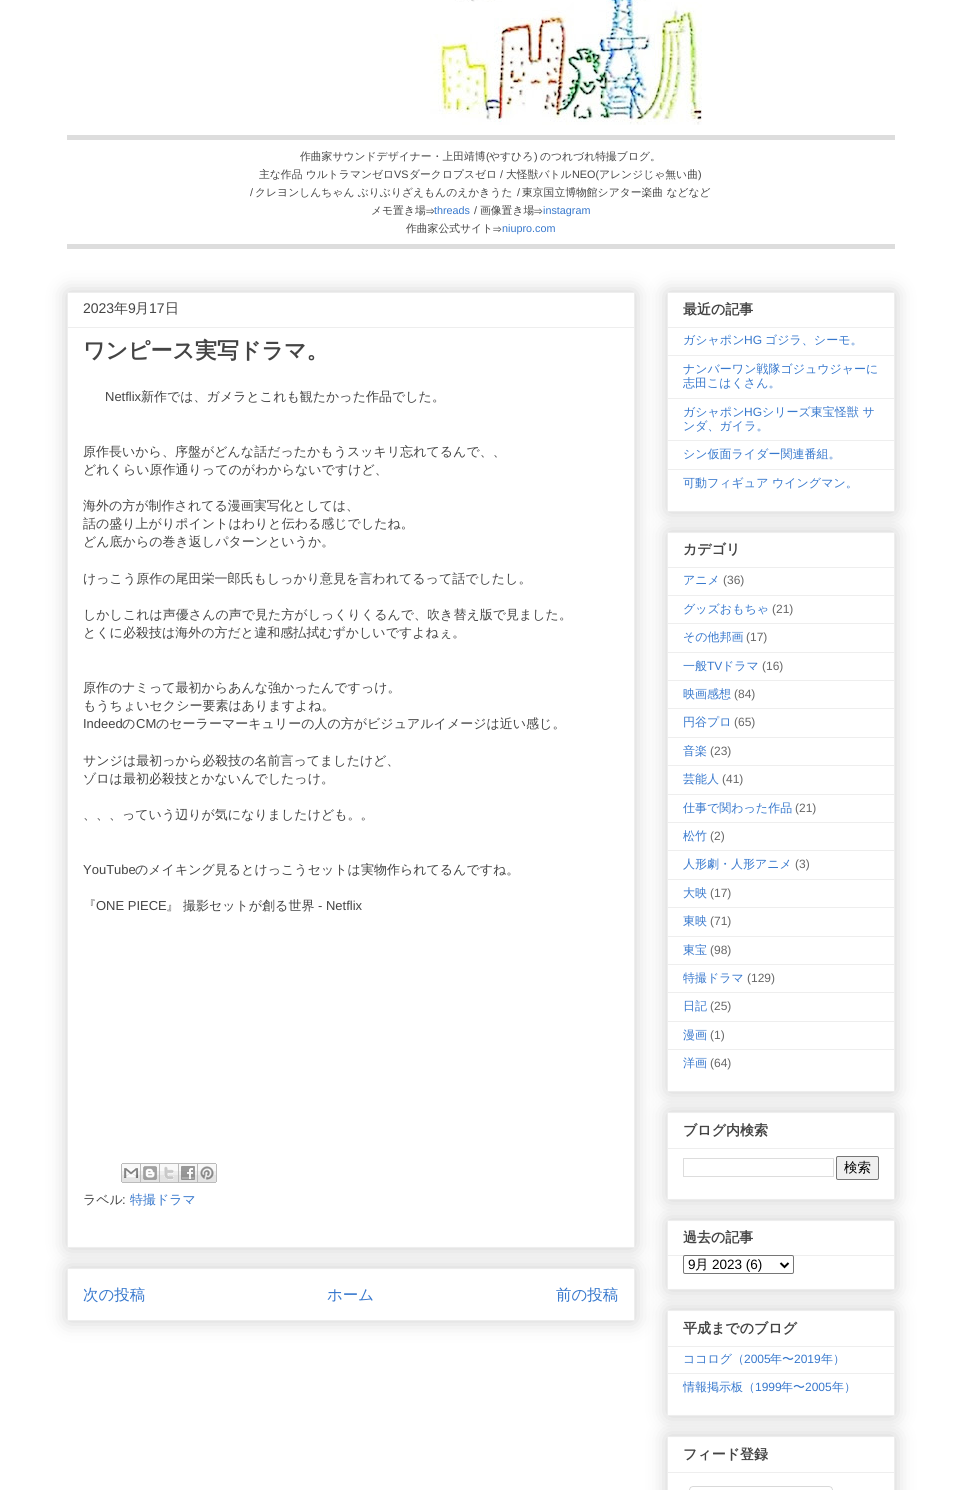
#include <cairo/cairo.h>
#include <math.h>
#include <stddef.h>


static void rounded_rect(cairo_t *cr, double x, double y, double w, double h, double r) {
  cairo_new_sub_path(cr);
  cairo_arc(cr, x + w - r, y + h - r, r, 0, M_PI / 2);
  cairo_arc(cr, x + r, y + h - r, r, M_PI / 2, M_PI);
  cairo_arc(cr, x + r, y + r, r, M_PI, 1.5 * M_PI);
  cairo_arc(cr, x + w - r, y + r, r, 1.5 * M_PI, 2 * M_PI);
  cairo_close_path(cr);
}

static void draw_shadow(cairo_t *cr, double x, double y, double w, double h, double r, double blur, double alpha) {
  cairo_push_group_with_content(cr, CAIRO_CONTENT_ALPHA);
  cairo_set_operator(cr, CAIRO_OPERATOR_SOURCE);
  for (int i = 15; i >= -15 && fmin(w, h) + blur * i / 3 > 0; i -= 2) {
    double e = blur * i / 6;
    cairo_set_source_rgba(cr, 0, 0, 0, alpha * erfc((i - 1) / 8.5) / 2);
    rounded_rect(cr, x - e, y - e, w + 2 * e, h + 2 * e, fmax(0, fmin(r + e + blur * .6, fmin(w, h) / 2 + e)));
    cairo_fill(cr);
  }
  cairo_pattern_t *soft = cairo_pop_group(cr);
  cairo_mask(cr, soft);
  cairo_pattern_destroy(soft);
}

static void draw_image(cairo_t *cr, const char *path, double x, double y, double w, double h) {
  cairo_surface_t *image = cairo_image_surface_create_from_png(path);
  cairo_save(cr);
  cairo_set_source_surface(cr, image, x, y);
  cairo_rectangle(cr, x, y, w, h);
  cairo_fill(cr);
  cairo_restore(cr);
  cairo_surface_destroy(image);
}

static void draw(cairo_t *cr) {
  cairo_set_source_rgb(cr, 1, 1, 1);
  cairo_paint(cr);
  draw_image(cr, "images/1.png", 430, 0, 272, 125);
  cairo_set_source_rgb(cr, 221 / 255.0, 221 / 255.0, 221 / 255.0);
  cairo_rectangle(cr, 67, 135, 828, 5);
  cairo_fill(cr);
  cairo_rectangle(cr, 67, 244, 828, 5);
  cairo_fill(cr);
  cairo_save(cr);
  cairo_set_fill_rule(cr, CAIRO_FILL_RULE_EVEN_ODD);
  cairo_new_path(cr);
  cairo_move_to(cr, 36, 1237);
  cairo_line_to(cr, 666, 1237);
  cairo_line_to(cr, 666, 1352);
  cairo_line_to(cr, 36, 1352);
  cairo_close_path(cr);
  cairo_move_to(cr, 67, 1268);
  cairo_line_to(cr, 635, 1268);
  cairo_line_to(cr, 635, 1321);
  cairo_line_to(cr, 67, 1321);
  cairo_close_path(cr);
  cairo_clip(cr);
  cairo_set_source_rgb(cr, 0, 0, 0);
  draw_shadow(cr, 67, 1268, 568, 53, 0, 10, 0.2);
  cairo_restore(cr);
  cairo_rectangle(cr, 67.5, 1268.5, 567, 52);
  cairo_set_source_rgb(cr, 238 / 255.0, 238 / 255.0, 238 / 255.0);
  cairo_set_line_width(cr, 1);
  cairo_stroke(cr);
  cairo_save(cr);
  cairo_set_fill_rule(cr, CAIRO_FILL_RULE_EVEN_ODD);
  cairo_new_path(cr);
  cairo_move_to(cr, 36, 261);
  cairo_line_to(cr, 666, 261);
  cairo_line_to(cr, 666, 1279);
  cairo_line_to(cr, 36, 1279);
  cairo_close_path(cr);
  cairo_move_to(cr, 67, 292);
  cairo_line_to(cr, 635, 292);
  cairo_line_to(cr, 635, 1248);
  cairo_line_to(cr, 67, 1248);
  cairo_close_path(cr);
  cairo_clip(cr);
  cairo_set_source_rgb(cr, 0, 0, 0);
  draw_shadow(cr, 67, 292, 568, 956, 0, 10, 0.2);
  cairo_restore(cr);
  cairo_rectangle(cr, 67.5, 292.5, 567, 955);
  cairo_stroke(cr);
  cairo_rectangle(cr, 68, 327, 566, 1);
  cairo_fill(cr);
  draw_image(cr, "images/2.png", 121, 1163, 20, 20);
  draw_image(cr, "images/3.png", 141, 1163, 19, 20);
  draw_image(cr, "images/4.png", 160, 1163, 19, 20);
  draw_image(cr, "images/5.png", 179, 1163, 19, 20);
  draw_image(cr, "images/6.png", 198, 1163, 19, 20);
  cairo_save(cr);
  cairo_set_fill_rule(cr, CAIRO_FILL_RULE_EVEN_ODD);
  cairo_new_path(cr);
  cairo_move_to(cr, 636, 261);
  cairo_line_to(cr, 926, 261);
  cairo_line_to(cr, 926, 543);
  cairo_line_to(cr, 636, 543);
  cairo_close_path(cr);
  cairo_move_to(cr, 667, 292);
  cairo_line_to(cr, 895, 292);
  cairo_line_to(cr, 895, 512);
  cairo_line_to(cr, 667, 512);
  cairo_close_path(cr);
  cairo_clip(cr);
  cairo_set_source_rgb(cr, 0, 0, 0);
  draw_shadow(cr, 667, 292, 228, 220, 0, 10, 0.2);
  cairo_restore(cr);
  cairo_rectangle(cr, 667.5, 292.5, 227, 219);
  cairo_stroke(cr);
  cairo_rectangle(cr, 668, 327, 226, 1);
  cairo_fill(cr);
  cairo_rectangle(cr, 668, 355, 226, 1);
  cairo_fill(cr);
  cairo_rectangle(cr, 668, 398, 226, 1);
  cairo_fill(cr);
  cairo_rectangle(cr, 668, 440, 226, 1);
  cairo_fill(cr);
  cairo_rectangle(cr, 668, 469, 226, 1);
  cairo_fill(cr);
  cairo_save(cr);
  cairo_set_fill_rule(cr, CAIRO_FILL_RULE_EVEN_ODD);
  cairo_new_path(cr);
  cairo_move_to(cr, 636, 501);
  cairo_line_to(cr, 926, 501);
  cairo_line_to(cr, 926, 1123);
  cairo_line_to(cr, 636, 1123);
  cairo_close_path(cr);
  cairo_move_to(cr, 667, 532);
  cairo_line_to(cr, 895, 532);
  cairo_line_to(cr, 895, 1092);
  cairo_line_to(cr, 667, 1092);
  cairo_close_path(cr);
  cairo_clip(cr);
  cairo_set_source_rgb(cr, 0, 0, 0);
  draw_shadow(cr, 667, 532, 228, 560, 0, 10, 0.2);
  cairo_restore(cr);
  cairo_rectangle(cr, 667.5, 532.5, 227, 559);
  cairo_stroke(cr);
  cairo_rectangle(cr, 668, 567, 226, 1);
  cairo_fill(cr);
  cairo_rectangle(cr, 668, 595, 226, 1);
  cairo_fill(cr);
  cairo_rectangle(cr, 668, 623, 226, 1);
  cairo_fill(cr);
  cairo_rectangle(cr, 668, 652, 226, 1);
  cairo_fill(cr);
  cairo_rectangle(cr, 668, 680, 226, 1);
  cairo_fill(cr);
  cairo_rectangle(cr, 668, 708, 226, 1);
  cairo_fill(cr);
  cairo_rectangle(cr, 668, 737, 226, 1);
  cairo_fill(cr);
  cairo_rectangle(cr, 668, 765, 226, 1);
  cairo_fill(cr);
  cairo_rectangle(cr, 668, 794, 226, 1);
  cairo_fill(cr);
  cairo_rectangle(cr, 668, 822, 226, 1);
  cairo_fill(cr);
  cairo_rectangle(cr, 668, 850, 226, 1);
  cairo_fill(cr);
  cairo_rectangle(cr, 668, 879, 226, 1);
  cairo_fill(cr);
  cairo_rectangle(cr, 668, 907, 226, 1);
  cairo_fill(cr);
  cairo_rectangle(cr, 668, 936, 226, 1);
  cairo_fill(cr);
  cairo_rectangle(cr, 668, 964, 226, 1);
  cairo_fill(cr);
  cairo_rectangle(cr, 668, 992, 226, 1);
  cairo_fill(cr);
  cairo_rectangle(cr, 668, 1021, 226, 1);
  cairo_fill(cr);
  cairo_rectangle(cr, 668, 1049, 226, 1);
  cairo_fill(cr);
  cairo_save(cr);
  cairo_set_fill_rule(cr, CAIRO_FILL_RULE_EVEN_ODD);
  cairo_new_path(cr);
  cairo_move_to(cr, 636, 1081);
  cairo_line_to(cr, 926, 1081);
  cairo_line_to(cr, 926, 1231);
  cairo_line_to(cr, 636, 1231);
  cairo_close_path(cr);
  cairo_move_to(cr, 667, 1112);
  cairo_line_to(cr, 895, 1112);
  cairo_line_to(cr, 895, 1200);
  cairo_line_to(cr, 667, 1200);
  cairo_close_path(cr);
  cairo_clip(cr);
  cairo_set_source_rgb(cr, 0, 0, 0);
  draw_shadow(cr, 667, 1112, 228, 88, 0, 10, 0.2);
  cairo_restore(cr);
  cairo_rectangle(cr, 667.5, 1112.5, 227, 87);
  cairo_stroke(cr);
  cairo_rectangle(cr, 668, 1148, 226, 1);
  cairo_fill(cr);
  cairo_rectangle(cr, 683.5, 1158.5, 150, 18);
  cairo_set_source_rgb(cr, 221 / 255.0, 221 / 255.0, 221 / 255.0);
  cairo_stroke(cr);
  cairo_set_source_rgb(cr, 239 / 255.0, 239 / 255.0, 239 / 255.0);
  rounded_rect(cr, 836.5, 1156.5, 42, 23, 1.5);
  cairo_fill_preserve(cr);
  cairo_set_source_rgb(cr, 118 / 255.0, 118 / 255.0, 118 / 255.0);
  cairo_stroke(cr);
  cairo_save(cr);
  cairo_set_fill_rule(cr, CAIRO_FILL_RULE_EVEN_ODD);
  cairo_new_path(cr);
  cairo_move_to(cr, 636, 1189);
  cairo_line_to(cr, 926, 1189);
  cairo_line_to(cr, 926, 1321);
  cairo_line_to(cr, 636, 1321);
  cairo_close_path(cr);
  cairo_move_to(cr, 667, 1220);
  cairo_line_to(cr, 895, 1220);
  cairo_line_to(cr, 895, 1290);
  cairo_line_to(cr, 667, 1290);
  cairo_close_path(cr);
  cairo_clip(cr);
  cairo_set_source_rgb(cr, 0, 0, 0);
  draw_shadow(cr, 667, 1220, 228, 70, 0, 10, 0.2);
  cairo_restore(cr);
  cairo_rectangle(cr, 667.5, 1220.5, 227, 69);
  cairo_set_source_rgb(cr, 238 / 255.0, 238 / 255.0, 238 / 255.0);
  cairo_stroke(cr);
  cairo_rectangle(cr, 668, 1255, 226, 1);
  cairo_fill(cr);
  cairo_set_source_rgb(cr, 1, 1, 1);
  rounded_rect(cr, 683.5, 1255.5, 110, 18, 1.5);
  cairo_fill_preserve(cr);
  cairo_set_source_rgb(cr, 118 / 255.0, 118 / 255.0, 118 / 255.0);
  cairo_stroke(cr);
  cairo_new_path(cr);
  cairo_move_to(cr, 780.5, 1263);
  cairo_line_to(cr, 784.5, 1267);
  cairo_line_to(cr, 788.5, 1263);
  cairo_set_source_rgb(cr, 0, 0, 0);
  cairo_set_line_width(cr, 2);
  cairo_stroke(cr);
  cairo_save(cr);
  cairo_set_fill_rule(cr, CAIRO_FILL_RULE_EVEN_ODD);
  cairo_new_path(cr);
  cairo_move_to(cr, 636, 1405);
  cairo_line_to(cr, 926, 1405);
  cairo_line_to(cr, 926, 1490);
  cairo_line_to(cr, 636, 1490);
  cairo_close_path(cr);
  cairo_move_to(cr, 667, 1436);
  cairo_line_to(cr, 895, 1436);
  cairo_line_to(cr, 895, 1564);
  cairo_line_to(cr, 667, 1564);
  cairo_close_path(cr);
  cairo_clip(cr);
  cairo_set_source_rgb(cr, 0, 0, 0);
  draw_shadow(cr, 667, 1436, 228, 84, 0, 10, 0.2);
  cairo_restore(cr);
  cairo_rectangle(cr, 667.5, 1436.5, 227, 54);
  cairo_set_source_rgb(cr, 238 / 255.0, 238 / 255.0, 238 / 255.0);
  cairo_set_line_width(cr, 1);
  cairo_stroke(cr);
  cairo_save(cr);
  cairo_set_fill_rule(cr, CAIRO_FILL_RULE_EVEN_ODD);
  cairo_new_path(cr);
  cairo_move_to(cr, 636, 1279);
  cairo_line_to(cr, 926, 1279);
  cairo_line_to(cr, 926, 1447);
  cairo_line_to(cr, 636, 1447);
  cairo_close_path(cr);
  cairo_move_to(cr, 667, 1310);
  cairo_line_to(cr, 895, 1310);
  cairo_line_to(cr, 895, 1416);
  cairo_line_to(cr, 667, 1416);
  cairo_close_path(cr);
  cairo_clip(cr);
  cairo_set_source_rgb(cr, 0, 0, 0);
  draw_shadow(cr, 667, 1310, 228, 106, 0, 10, 0.2);
  cairo_restore(cr);
  cairo_rectangle(cr, 667.5, 1310.5, 227, 105);
  cairo_stroke(cr);
  cairo_rectangle(cr, 668, 1346, 226, 1);
  cairo_fill(cr);
  cairo_rectangle(cr, 668, 1373, 226, 1);
  cairo_fill(cr);
  cairo_rectangle(cr, 668, 1472, 226, 1);
  cairo_fill(cr);
  draw_image(cr, "images/7.png", 689, 1486, 144, 4);
  cairo_select_font_face(cr, "WenQuanYi Zen Hei Medium", CAIRO_FONT_SLANT_NORMAL, CAIRO_FONT_WEIGHT_NORMAL);
  cairo_set_font_size(cr, 10.8);
  cairo_set_source_rgb(cr, 68 / 255.0, 68 / 255.0, 68 / 255.0);
  cairo_move_to(cr, 300, 160);
  cairo_show_text(cr, "作曲家サウンドデザイナー・上田靖博");
  cairo_select_font_face(cr, "Liberation Sans", CAIRO_FONT_SLANT_NORMAL, CAIRO_FONT_WEIGHT_NORMAL);
  cairo_move_to(cr, 486, 160);
  cairo_show_text(cr, "(");
  cairo_select_font_face(cr, "WenQuanYi Zen Hei Medium", CAIRO_FONT_SLANT_NORMAL, CAIRO_FONT_WEIGHT_NORMAL);
  cairo_move_to(cr, 489, 160);
  cairo_show_text(cr, "やすひろ");
  cairo_select_font_face(cr, "Liberation Sans", CAIRO_FONT_SLANT_NORMAL, CAIRO_FONT_WEIGHT_NORMAL);
  cairo_move_to(cr, 534, 160);
  cairo_show_text(cr, ")");
  cairo_select_font_face(cr, "WenQuanYi Zen Hei Medium", CAIRO_FONT_SLANT_NORMAL, CAIRO_FONT_WEIGHT_NORMAL);
  cairo_move_to(cr, 540, 160);
  cairo_show_text(cr, "のつれづれ特撮ブログ。");
  cairo_move_to(cr, 259, 178);
  cairo_show_text(cr, "主な作品 ウルトラマンゼロ");
  cairo_select_font_face(cr, "Liberation Sans", CAIRO_FONT_SLANT_NORMAL, CAIRO_FONT_WEIGHT_NORMAL);
  cairo_move_to(cr, 394, 178);
  cairo_show_text(cr, "VS");
  cairo_select_font_face(cr, "WenQuanYi Zen Hei Medium", CAIRO_FONT_SLANT_NORMAL, CAIRO_FONT_WEIGHT_NORMAL);
  cairo_move_to(cr, 409, 178);
  cairo_show_text(cr, "ダークロプスゼロ");
  cairo_select_font_face(cr, "Liberation Sans", CAIRO_FONT_SLANT_NORMAL, CAIRO_FONT_WEIGHT_NORMAL);
  cairo_move_to(cr, 500, 178);
  cairo_show_text(cr, "/");
  cairo_select_font_face(cr, "WenQuanYi Zen Hei Medium", CAIRO_FONT_SLANT_NORMAL, CAIRO_FONT_WEIGHT_NORMAL);
  cairo_move_to(cr, 506, 178);
  cairo_show_text(cr, "大怪獣バトル");
  cairo_select_font_face(cr, "Liberation Sans", CAIRO_FONT_SLANT_NORMAL, CAIRO_FONT_WEIGHT_NORMAL);
  cairo_move_to(cr, 572, 178);
  cairo_show_text(cr, "NEO(");
  cairo_select_font_face(cr, "WenQuanYi Zen Hei Medium", CAIRO_FONT_SLANT_NORMAL, CAIRO_FONT_WEIGHT_NORMAL);
  cairo_move_to(cr, 599, 178);
  cairo_show_text(cr, "アレンジじゃ無い曲");
  cairo_select_font_face(cr, "Liberation Sans", CAIRO_FONT_SLANT_NORMAL, CAIRO_FONT_WEIGHT_NORMAL);
  cairo_move_to(cr, 698, 178);
  cairo_show_text(cr, ")");
  cairo_move_to(cr, 250, 196);
  cairo_show_text(cr, "/");
  cairo_select_font_face(cr, "WenQuanYi Zen Hei Medium", CAIRO_FONT_SLANT_NORMAL, CAIRO_FONT_WEIGHT_NORMAL);
  cairo_move_to(cr, 255, 196);
  cairo_show_text(cr, "クレヨンしんちゃん ぶりぶりざえもんのえかきうた");
  cairo_select_font_face(cr, "Liberation Sans", CAIRO_FONT_SLANT_NORMAL, CAIRO_FONT_WEIGHT_NORMAL);
  cairo_move_to(cr, 517, 196);
  cairo_show_text(cr, "/");
  cairo_select_font_face(cr, "WenQuanYi Zen Hei Medium", CAIRO_FONT_SLANT_NORMAL, CAIRO_FONT_WEIGHT_NORMAL);
  cairo_move_to(cr, 522, 196);
  cairo_show_text(cr, "東京国立博物館シアター楽曲 などなど");
  cairo_move_to(cr, 371, 214);
  cairo_show_text(cr, "メモ置き場");
  cairo_select_font_face(cr, "FreeSans", CAIRO_FONT_SLANT_NORMAL, CAIRO_FONT_WEIGHT_NORMAL);
  cairo_move_to(cr, 426, 214);
  cairo_show_text(cr, "⇒");
  cairo_select_font_face(cr, "Liberation Sans", CAIRO_FONT_SLANT_NORMAL, CAIRO_FONT_WEIGHT_NORMAL);
  cairo_set_source_rgb(cr, 55 / 255.0, 120 / 255.0, 205 / 255.0);
  cairo_move_to(cr, 434, 214);
  cairo_show_text(cr, "threads");
  cairo_set_source_rgb(cr, 68 / 255.0, 68 / 255.0, 68 / 255.0);
  cairo_move_to(cr, 474, 214);
  cairo_show_text(cr, "/");
  cairo_select_font_face(cr, "WenQuanYi Zen Hei Medium", CAIRO_FONT_SLANT_NORMAL, CAIRO_FONT_WEIGHT_NORMAL);
  cairo_move_to(cr, 480, 214);
  cairo_show_text(cr, "画像置き場");
  cairo_select_font_face(cr, "FreeSans", CAIRO_FONT_SLANT_NORMAL, CAIRO_FONT_WEIGHT_NORMAL);
  cairo_move_to(cr, 534, 214);
  cairo_show_text(cr, "⇒");
  cairo_select_font_face(cr, "Liberation Sans", CAIRO_FONT_SLANT_NORMAL, CAIRO_FONT_WEIGHT_NORMAL);
  cairo_set_source_rgb(cr, 55 / 255.0, 120 / 255.0, 205 / 255.0);
  cairo_move_to(cr, 543, 214);
  cairo_show_text(cr, "instagram");
  cairo_select_font_face(cr, "WenQuanYi Zen Hei Medium", CAIRO_FONT_SLANT_NORMAL, CAIRO_FONT_WEIGHT_NORMAL);
  cairo_set_source_rgb(cr, 68 / 255.0, 68 / 255.0, 68 / 255.0);
  cairo_move_to(cr, 406, 232);
  cairo_show_text(cr, "作曲家公式サイト");
  cairo_select_font_face(cr, "FreeSans", CAIRO_FONT_SLANT_NORMAL, CAIRO_FONT_WEIGHT_NORMAL);
  cairo_move_to(cr, 493, 232);
  cairo_show_text(cr, "⇒");
  cairo_select_font_face(cr, "Liberation Sans", CAIRO_FONT_SLANT_NORMAL, CAIRO_FONT_WEIGHT_NORMAL);
  cairo_set_source_rgb(cr, 55 / 255.0, 120 / 255.0, 205 / 255.0);
  cairo_move_to(cr, 502, 232);
  cairo_show_text(cr, "niupro.com");
  cairo_set_font_size(cr, 14);
  cairo_set_source_rgb(cr, 68 / 255.0, 68 / 255.0, 68 / 255.0);
  cairo_move_to(cr, 83, 313);
  cairo_show_text(cr, "2023");
  cairo_select_font_face(cr, "WenQuanYi Zen Hei Medium", CAIRO_FONT_SLANT_NORMAL, CAIRO_FONT_WEIGHT_NORMAL);
  cairo_move_to(cr, 114, 313);
  cairo_show_text(cr, "年");
  cairo_select_font_face(cr, "Liberation Sans", CAIRO_FONT_SLANT_NORMAL, CAIRO_FONT_WEIGHT_NORMAL);
  cairo_move_to(cr, 128, 313);
  cairo_show_text(cr, "9");
  cairo_select_font_face(cr, "WenQuanYi Zen Hei Medium", CAIRO_FONT_SLANT_NORMAL, CAIRO_FONT_WEIGHT_NORMAL);
  cairo_move_to(cr, 135, 313);
  cairo_show_text(cr, "月");
  cairo_select_font_face(cr, "Liberation Sans", CAIRO_FONT_SLANT_NORMAL, CAIRO_FONT_WEIGHT_NORMAL);
  cairo_move_to(cr, 149, 313);
  cairo_show_text(cr, "17");
  cairo_select_font_face(cr, "WenQuanYi Zen Hei Medium", CAIRO_FONT_SLANT_NORMAL, CAIRO_FONT_WEIGHT_NORMAL);
  cairo_move_to(cr, 165, 313);
  cairo_show_text(cr, "日");
  cairo_select_font_face(cr, "WenQuanYi Zen Hei", CAIRO_FONT_SLANT_NORMAL, CAIRO_FONT_WEIGHT_BOLD);
  cairo_set_font_size(cr, 22);
  cairo_move_to(cr, 83, 358);
  cairo_show_text(cr, "ワンピース実写ドラマ。");
  cairo_select_font_face(cr, "Liberation Sans", CAIRO_FONT_SLANT_NORMAL, CAIRO_FONT_WEIGHT_NORMAL);
  cairo_set_font_size(cr, 13);
  cairo_move_to(cr, 105, 401);
  cairo_show_text(cr, "Netflix");
  cairo_select_font_face(cr, "WenQuanYi Zen Hei Medium", CAIRO_FONT_SLANT_NORMAL, CAIRO_FONT_WEIGHT_NORMAL);
  cairo_move_to(cr, 141, 401);
  cairo_show_text(cr, "新作では、ガメラとこれも観たかった作品でした。");
  cairo_move_to(cr, 83, 456);
  cairo_show_text(cr, "原作長いから、序盤がどんな話だったかもうスッキリ忘れてるんで、、");
  cairo_move_to(cr, 83, 474);
  cairo_show_text(cr, "どれくらい原作通りってのがわからないですけど、");
  cairo_move_to(cr, 83, 510);
  cairo_show_text(cr, "海外の方が制作されてる漫画実写化としては、");
  cairo_move_to(cr, 83, 528);
  cairo_show_text(cr, "話の盛り上がりポイントはわりと伝わる感じでしたね。");
  cairo_move_to(cr, 83, 546);
  cairo_show_text(cr, "どん底からの巻き返しパターンというか。");
  cairo_move_to(cr, 83, 583);
  cairo_show_text(cr, "けっこう原作の尾田栄一郎氏もしっかり意見を言われてるって話でしたし。");
  cairo_move_to(cr, 83, 619);
  cairo_show_text(cr, "しかしこれは声優さんの声で見た方がしっくりくるんで、吹き替え版で見ました。");
  cairo_move_to(cr, 83, 637);
  cairo_show_text(cr, "とくに必殺技は海外の方だと違和感払拭むずかしいですよねぇ。");
  cairo_move_to(cr, 83, 692);
  cairo_show_text(cr, "原作のナミって最初からあんな強かったんですっけ。");
  cairo_move_to(cr, 83, 710);
  cairo_show_text(cr, "もうちょいセクシー要素はありますよね。");
  cairo_select_font_face(cr, "Liberation Sans", CAIRO_FONT_SLANT_NORMAL, CAIRO_FONT_WEIGHT_NORMAL);
  cairo_move_to(cr, 83, 728);
  cairo_show_text(cr, "Indeed");
  cairo_select_font_face(cr, "WenQuanYi Zen Hei Medium", CAIRO_FONT_SLANT_NORMAL, CAIRO_FONT_WEIGHT_NORMAL);
  cairo_move_to(cr, 122, 728);
  cairo_show_text(cr, "の");
  cairo_select_font_face(cr, "Liberation Sans", CAIRO_FONT_SLANT_NORMAL, CAIRO_FONT_WEIGHT_NORMAL);
  cairo_move_to(cr, 136, 728);
  cairo_show_text(cr, "CM");
  cairo_select_font_face(cr, "WenQuanYi Zen Hei Medium", CAIRO_FONT_SLANT_NORMAL, CAIRO_FONT_WEIGHT_NORMAL);
  cairo_move_to(cr, 156, 728);
  cairo_show_text(cr, "のセーラーマーキュリーの人の方がビジュアルイメージは近い感じ。");
  cairo_move_to(cr, 83, 765);
  cairo_show_text(cr, "サンジは最初っから必殺技の名前言ってましたけど、");
  cairo_move_to(cr, 83, 783);
  cairo_show_text(cr, "ゾロは最初必殺技とかないんでしたっけ。");
  cairo_move_to(cr, 83, 819);
  cairo_show_text(cr, "、、、っていう辺りが気になりましたけども。。");
  cairo_select_font_face(cr, "Liberation Sans", CAIRO_FONT_SLANT_NORMAL, CAIRO_FONT_WEIGHT_NORMAL);
  cairo_move_to(cr, 83, 874);
  cairo_show_text(cr, "YouTube");
  cairo_select_font_face(cr, "WenQuanYi Zen Hei Medium", CAIRO_FONT_SLANT_NORMAL, CAIRO_FONT_WEIGHT_NORMAL);
  cairo_move_to(cr, 135, 874);
  cairo_show_text(cr, "のメイキング見るとけっこうセットは実物作られてるんですね。");
  cairo_move_to(cr, 83, 910);
  cairo_show_text(cr, "『");
  cairo_select_font_face(cr, "Liberation Sans", CAIRO_FONT_SLANT_NORMAL, CAIRO_FONT_WEIGHT_NORMAL);
  cairo_move_to(cr, 96, 910);
  cairo_show_text(cr, "ONE PIECE");
  cairo_select_font_face(cr, "WenQuanYi Zen Hei Medium", CAIRO_FONT_SLANT_NORMAL, CAIRO_FONT_WEIGHT_NORMAL);
  cairo_move_to(cr, 166, 910);
  cairo_show_text(cr, "』 撮影セットが創る世界");
  cairo_select_font_face(cr, "Liberation Sans", CAIRO_FONT_SLANT_NORMAL, CAIRO_FONT_WEIGHT_NORMAL);
  cairo_move_to(cr, 318, 910);
  cairo_show_text(cr, "- Netflix");
  cairo_select_font_face(cr, "WenQuanYi Zen Hei Medium", CAIRO_FONT_SLANT_NORMAL, CAIRO_FONT_WEIGHT_NORMAL);
  cairo_move_to(cr, 83, 1204);
  cairo_show_text(cr, "ラベル");
  cairo_select_font_face(cr, "Liberation Sans", CAIRO_FONT_SLANT_NORMAL, CAIRO_FONT_WEIGHT_NORMAL);
  cairo_move_to(cr, 122, 1204);
  cairo_show_text(cr, ":");
  cairo_select_font_face(cr, "WenQuanYi Zen Hei Medium", CAIRO_FONT_SLANT_NORMAL, CAIRO_FONT_WEIGHT_NORMAL);
  cairo_set_source_rgb(cr, 55 / 255.0, 120 / 255.0, 205 / 255.0);
  cairo_move_to(cr, 130, 1204);
  cairo_show_text(cr, "特撮ドラマ");
  cairo_set_font_size(cr, 15.5);
  cairo_move_to(cr, 83, 1300);
  cairo_show_text(cr, "次の投稿");
  cairo_move_to(cr, 327, 1300);
  cairo_show_text(cr, "ホーム");
  cairo_move_to(cr, 556, 1300);
  cairo_show_text(cr, "前の投稿");
  cairo_select_font_face(cr, "WenQuanYi Zen Hei", CAIRO_FONT_SLANT_NORMAL, CAIRO_FONT_WEIGHT_BOLD);
  cairo_set_font_size(cr, 14);
  cairo_set_source_rgb(cr, 68 / 255.0, 68 / 255.0, 68 / 255.0);
  cairo_move_to(cr, 683, 314);
  cairo_show_text(cr, "最近の記事");
  cairo_select_font_face(cr, "WenQuanYi Zen Hei Medium", CAIRO_FONT_SLANT_NORMAL, CAIRO_FONT_WEIGHT_NORMAL);
  cairo_set_font_size(cr, 12);
  cairo_set_source_rgb(cr, 55 / 255.0, 120 / 255.0, 205 / 255.0);
  cairo_move_to(cr, 683, 344);
  cairo_show_text(cr, "ガシャポン");
  cairo_select_font_face(cr, "Liberation Sans", CAIRO_FONT_SLANT_NORMAL, CAIRO_FONT_WEIGHT_NORMAL);
  cairo_move_to(cr, 744, 344);
  cairo_show_text(cr, "HG");
  cairo_select_font_face(cr, "WenQuanYi Zen Hei Medium", CAIRO_FONT_SLANT_NORMAL, CAIRO_FONT_WEIGHT_NORMAL);
  cairo_move_to(cr, 765, 344);
  cairo_show_text(cr, "ゴジラ、シーモ。");
  cairo_move_to(cr, 683, 373);
  cairo_show_text(cr, "ナンバーワン戦隊ゴジュウジャーに");
  cairo_move_to(cr, 683, 387);
  cairo_show_text(cr, "志田こはくさん。");
  cairo_move_to(cr, 683, 416);
  cairo_show_text(cr, "ガシャポン");
  cairo_select_font_face(cr, "Liberation Sans", CAIRO_FONT_SLANT_NORMAL, CAIRO_FONT_WEIGHT_NORMAL);
  cairo_move_to(cr, 744, 416);
  cairo_show_text(cr, "HG");
  cairo_select_font_face(cr, "WenQuanYi Zen Hei Medium", CAIRO_FONT_SLANT_NORMAL, CAIRO_FONT_WEIGHT_NORMAL);
  cairo_move_to(cr, 762, 416);
  cairo_show_text(cr, "シリーズ東宝怪獣 サ");
  cairo_move_to(cr, 683, 430);
  cairo_show_text(cr, "ンダ、ガイラ。");
  cairo_move_to(cr, 683, 458);
  cairo_show_text(cr, "シン仮面ライダー関連番組。");
  cairo_move_to(cr, 683, 487);
  cairo_show_text(cr, "可動フィギュア ウイングマン。");
  cairo_select_font_face(cr, "WenQuanYi Zen Hei", CAIRO_FONT_SLANT_NORMAL, CAIRO_FONT_WEIGHT_BOLD);
  cairo_set_font_size(cr, 14);
  cairo_set_source_rgb(cr, 68 / 255.0, 68 / 255.0, 68 / 255.0);
  cairo_move_to(cr, 683, 554);
  cairo_show_text(cr, "カデゴリ");
  cairo_select_font_face(cr, "WenQuanYi Zen Hei Medium", CAIRO_FONT_SLANT_NORMAL, CAIRO_FONT_WEIGHT_NORMAL);
  cairo_set_font_size(cr, 12);
  cairo_set_source_rgb(cr, 55 / 255.0, 120 / 255.0, 205 / 255.0);
  cairo_move_to(cr, 683, 584);
  cairo_show_text(cr, "アニメ");
  cairo_select_font_face(cr, "Liberation Sans", CAIRO_FONT_SLANT_NORMAL, CAIRO_FONT_WEIGHT_NORMAL);
  cairo_set_source_rgb(cr, 102 / 255.0, 102 / 255.0, 102 / 255.0);
  cairo_move_to(cr, 723, 584);
  cairo_show_text(cr, "(36)");
  cairo_select_font_face(cr, "WenQuanYi Zen Hei Medium", CAIRO_FONT_SLANT_NORMAL, CAIRO_FONT_WEIGHT_NORMAL);
  cairo_set_source_rgb(cr, 55 / 255.0, 120 / 255.0, 205 / 255.0);
  cairo_move_to(cr, 683, 613);
  cairo_show_text(cr, "グッズおもちゃ");
  cairo_select_font_face(cr, "Liberation Sans", CAIRO_FONT_SLANT_NORMAL, CAIRO_FONT_WEIGHT_NORMAL);
  cairo_set_source_rgb(cr, 102 / 255.0, 102 / 255.0, 102 / 255.0);
  cairo_move_to(cr, 772, 613);
  cairo_show_text(cr, "(21)");
  cairo_select_font_face(cr, "WenQuanYi Zen Hei Medium", CAIRO_FONT_SLANT_NORMAL, CAIRO_FONT_WEIGHT_NORMAL);
  cairo_set_source_rgb(cr, 55 / 255.0, 120 / 255.0, 205 / 255.0);
  cairo_move_to(cr, 683, 641);
  cairo_show_text(cr, "その他邦画");
  cairo_select_font_face(cr, "Liberation Sans", CAIRO_FONT_SLANT_NORMAL, CAIRO_FONT_WEIGHT_NORMAL);
  cairo_set_source_rgb(cr, 102 / 255.0, 102 / 255.0, 102 / 255.0);
  cairo_move_to(cr, 746, 641);
  cairo_show_text(cr, "(17)");
  cairo_select_font_face(cr, "WenQuanYi Zen Hei Medium", CAIRO_FONT_SLANT_NORMAL, CAIRO_FONT_WEIGHT_NORMAL);
  cairo_set_source_rgb(cr, 55 / 255.0, 120 / 255.0, 205 / 255.0);
  cairo_move_to(cr, 683, 670);
  cairo_show_text(cr, "一般");
  cairo_select_font_face(cr, "Liberation Sans", CAIRO_FONT_SLANT_NORMAL, CAIRO_FONT_WEIGHT_NORMAL);
  cairo_move_to(cr, 707, 670);
  cairo_show_text(cr, "TV");
  cairo_select_font_face(cr, "WenQuanYi Zen Hei Medium", CAIRO_FONT_SLANT_NORMAL, CAIRO_FONT_WEIGHT_NORMAL);
  cairo_move_to(cr, 722, 670);
  cairo_show_text(cr, "ドラマ");
  cairo_select_font_face(cr, "Liberation Sans", CAIRO_FONT_SLANT_NORMAL, CAIRO_FONT_WEIGHT_NORMAL);
  cairo_set_source_rgb(cr, 102 / 255.0, 102 / 255.0, 102 / 255.0);
  cairo_move_to(cr, 762, 670);
  cairo_show_text(cr, "(16)");
  cairo_select_font_face(cr, "WenQuanYi Zen Hei Medium", CAIRO_FONT_SLANT_NORMAL, CAIRO_FONT_WEIGHT_NORMAL);
  cairo_set_source_rgb(cr, 55 / 255.0, 120 / 255.0, 205 / 255.0);
  cairo_move_to(cr, 683, 698);
  cairo_show_text(cr, "映画感想");
  cairo_select_font_face(cr, "Liberation Sans", CAIRO_FONT_SLANT_NORMAL, CAIRO_FONT_WEIGHT_NORMAL);
  cairo_set_source_rgb(cr, 102 / 255.0, 102 / 255.0, 102 / 255.0);
  cairo_move_to(cr, 734, 698);
  cairo_show_text(cr, "(84)");
  cairo_select_font_face(cr, "WenQuanYi Zen Hei Medium", CAIRO_FONT_SLANT_NORMAL, CAIRO_FONT_WEIGHT_NORMAL);
  cairo_set_source_rgb(cr, 55 / 255.0, 120 / 255.0, 205 / 255.0);
  cairo_move_to(cr, 683, 726);
  cairo_show_text(cr, "円谷プロ");
  cairo_select_font_face(cr, "Liberation Sans", CAIRO_FONT_SLANT_NORMAL, CAIRO_FONT_WEIGHT_NORMAL);
  cairo_set_source_rgb(cr, 102 / 255.0, 102 / 255.0, 102 / 255.0);
  cairo_move_to(cr, 734, 726);
  cairo_show_text(cr, "(65)");
  cairo_select_font_face(cr, "WenQuanYi Zen Hei Medium", CAIRO_FONT_SLANT_NORMAL, CAIRO_FONT_WEIGHT_NORMAL);
  cairo_set_source_rgb(cr, 55 / 255.0, 120 / 255.0, 205 / 255.0);
  cairo_move_to(cr, 683, 755);
  cairo_show_text(cr, "音楽");
  cairo_select_font_face(cr, "Liberation Sans", CAIRO_FONT_SLANT_NORMAL, CAIRO_FONT_WEIGHT_NORMAL);
  cairo_set_source_rgb(cr, 102 / 255.0, 102 / 255.0, 102 / 255.0);
  cairo_move_to(cr, 710, 755);
  cairo_show_text(cr, "(23)");
  cairo_select_font_face(cr, "WenQuanYi Zen Hei Medium", CAIRO_FONT_SLANT_NORMAL, CAIRO_FONT_WEIGHT_NORMAL);
  cairo_set_source_rgb(cr, 55 / 255.0, 120 / 255.0, 205 / 255.0);
  cairo_move_to(cr, 683, 783);
  cairo_show_text(cr, "芸能人");
  cairo_select_font_face(cr, "Liberation Sans", CAIRO_FONT_SLANT_NORMAL, CAIRO_FONT_WEIGHT_NORMAL);
  cairo_set_source_rgb(cr, 102 / 255.0, 102 / 255.0, 102 / 255.0);
  cairo_move_to(cr, 722, 783);
  cairo_show_text(cr, "(41)");
  cairo_select_font_face(cr, "WenQuanYi Zen Hei Medium", CAIRO_FONT_SLANT_NORMAL, CAIRO_FONT_WEIGHT_NORMAL);
  cairo_set_source_rgb(cr, 55 / 255.0, 120 / 255.0, 205 / 255.0);
  cairo_move_to(cr, 683, 812);
  cairo_show_text(cr, "仕事で関わった作品");
  cairo_select_font_face(cr, "Liberation Sans", CAIRO_FONT_SLANT_NORMAL, CAIRO_FONT_WEIGHT_NORMAL);
  cairo_set_source_rgb(cr, 102 / 255.0, 102 / 255.0, 102 / 255.0);
  cairo_move_to(cr, 795, 812);
  cairo_show_text(cr, "(21)");
  cairo_select_font_face(cr, "WenQuanYi Zen Hei Medium", CAIRO_FONT_SLANT_NORMAL, CAIRO_FONT_WEIGHT_NORMAL);
  cairo_set_source_rgb(cr, 55 / 255.0, 120 / 255.0, 205 / 255.0);
  cairo_move_to(cr, 683, 840);
  cairo_show_text(cr, "松竹");
  cairo_select_font_face(cr, "Liberation Sans", CAIRO_FONT_SLANT_NORMAL, CAIRO_FONT_WEIGHT_NORMAL);
  cairo_set_source_rgb(cr, 102 / 255.0, 102 / 255.0, 102 / 255.0);
  cairo_move_to(cr, 710, 840);
  cairo_show_text(cr, "(2)");
  cairo_select_font_face(cr, "WenQuanYi Zen Hei Medium", CAIRO_FONT_SLANT_NORMAL, CAIRO_FONT_WEIGHT_NORMAL);
  cairo_set_source_rgb(cr, 55 / 255.0, 120 / 255.0, 205 / 255.0);
  cairo_move_to(cr, 683, 868);
  cairo_show_text(cr, "人形劇・人形アニメ");
  cairo_select_font_face(cr, "Liberation Sans", CAIRO_FONT_SLANT_NORMAL, CAIRO_FONT_WEIGHT_NORMAL);
  cairo_set_source_rgb(cr, 102 / 255.0, 102 / 255.0, 102 / 255.0);
  cairo_move_to(cr, 795, 868);
  cairo_show_text(cr, "(3)");
  cairo_select_font_face(cr, "WenQuanYi Zen Hei Medium", CAIRO_FONT_SLANT_NORMAL, CAIRO_FONT_WEIGHT_NORMAL);
  cairo_set_source_rgb(cr, 55 / 255.0, 120 / 255.0, 205 / 255.0);
  cairo_move_to(cr, 683, 897);
  cairo_show_text(cr, "大映");
  cairo_select_font_face(cr, "Liberation Sans", CAIRO_FONT_SLANT_NORMAL, CAIRO_FONT_WEIGHT_NORMAL);
  cairo_set_source_rgb(cr, 102 / 255.0, 102 / 255.0, 102 / 255.0);
  cairo_move_to(cr, 710, 897);
  cairo_show_text(cr, "(17)");
  cairo_select_font_face(cr, "WenQuanYi Zen Hei Medium", CAIRO_FONT_SLANT_NORMAL, CAIRO_FONT_WEIGHT_NORMAL);
  cairo_set_source_rgb(cr, 55 / 255.0, 120 / 255.0, 205 / 255.0);
  cairo_move_to(cr, 683, 925);
  cairo_show_text(cr, "東映");
  cairo_select_font_face(cr, "Liberation Sans", CAIRO_FONT_SLANT_NORMAL, CAIRO_FONT_WEIGHT_NORMAL);
  cairo_set_source_rgb(cr, 102 / 255.0, 102 / 255.0, 102 / 255.0);
  cairo_move_to(cr, 710, 925);
  cairo_show_text(cr, "(71)");
  cairo_select_font_face(cr, "WenQuanYi Zen Hei Medium", CAIRO_FONT_SLANT_NORMAL, CAIRO_FONT_WEIGHT_NORMAL);
  cairo_set_source_rgb(cr, 55 / 255.0, 120 / 255.0, 205 / 255.0);
  cairo_move_to(cr, 683, 954);
  cairo_show_text(cr, "東宝");
  cairo_select_font_face(cr, "Liberation Sans", CAIRO_FONT_SLANT_NORMAL, CAIRO_FONT_WEIGHT_NORMAL);
  cairo_set_source_rgb(cr, 102 / 255.0, 102 / 255.0, 102 / 255.0);
  cairo_move_to(cr, 710, 954);
  cairo_show_text(cr, "(98)");
  cairo_select_font_face(cr, "WenQuanYi Zen Hei Medium", CAIRO_FONT_SLANT_NORMAL, CAIRO_FONT_WEIGHT_NORMAL);
  cairo_set_source_rgb(cr, 55 / 255.0, 120 / 255.0, 205 / 255.0);
  cairo_move_to(cr, 683, 982);
  cairo_show_text(cr, "特撮ドラマ");
  cairo_select_font_face(cr, "Liberation Sans", CAIRO_FONT_SLANT_NORMAL, CAIRO_FONT_WEIGHT_NORMAL);
  cairo_set_source_rgb(cr, 102 / 255.0, 102 / 255.0, 102 / 255.0);
  cairo_move_to(cr, 747, 982);
  cairo_show_text(cr, "(129)");
  cairo_select_font_face(cr, "WenQuanYi Zen Hei Medium", CAIRO_FONT_SLANT_NORMAL, CAIRO_FONT_WEIGHT_NORMAL);
  cairo_set_source_rgb(cr, 55 / 255.0, 120 / 255.0, 205 / 255.0);
  cairo_move_to(cr, 683, 1010);
  cairo_show_text(cr, "日記");
  cairo_select_font_face(cr, "Liberation Sans", CAIRO_FONT_SLANT_NORMAL, CAIRO_FONT_WEIGHT_NORMAL);
  cairo_set_source_rgb(cr, 102 / 255.0, 102 / 255.0, 102 / 255.0);
  cairo_move_to(cr, 710, 1010);
  cairo_show_text(cr, "(25)");
  cairo_select_font_face(cr, "WenQuanYi Zen Hei Medium", CAIRO_FONT_SLANT_NORMAL, CAIRO_FONT_WEIGHT_NORMAL);
  cairo_set_source_rgb(cr, 55 / 255.0, 120 / 255.0, 205 / 255.0);
  cairo_move_to(cr, 683, 1039);
  cairo_show_text(cr, "漫画");
  cairo_select_font_face(cr, "Liberation Sans", CAIRO_FONT_SLANT_NORMAL, CAIRO_FONT_WEIGHT_NORMAL);
  cairo_set_source_rgb(cr, 102 / 255.0, 102 / 255.0, 102 / 255.0);
  cairo_move_to(cr, 710, 1039);
  cairo_show_text(cr, "(1)");
  cairo_select_font_face(cr, "WenQuanYi Zen Hei Medium", CAIRO_FONT_SLANT_NORMAL, CAIRO_FONT_WEIGHT_NORMAL);
  cairo_set_source_rgb(cr, 55 / 255.0, 120 / 255.0, 205 / 255.0);
  cairo_move_to(cr, 683, 1067);
  cairo_show_text(cr, "洋画");
  cairo_select_font_face(cr, "Liberation Sans", CAIRO_FONT_SLANT_NORMAL, CAIRO_FONT_WEIGHT_NORMAL);
  cairo_set_source_rgb(cr, 102 / 255.0, 102 / 255.0, 102 / 255.0);
  cairo_move_to(cr, 710, 1067);
  cairo_show_text(cr, "(64)");
  cairo_select_font_face(cr, "WenQuanYi Zen Hei", CAIRO_FONT_SLANT_NORMAL, CAIRO_FONT_WEIGHT_BOLD);
  cairo_set_font_size(cr, 14);
  cairo_set_source_rgb(cr, 68 / 255.0, 68 / 255.0, 68 / 255.0);
  cairo_move_to(cr, 683, 1135);
  cairo_show_text(cr, "ブログ内検索");
  cairo_select_font_face(cr, "WenQuanYi Zen Hei Medium", CAIRO_FONT_SLANT_NORMAL, CAIRO_FONT_WEIGHT_NORMAL);
  cairo_set_font_size(cr, 13.5);
  cairo_set_source_rgb(cr, 0, 0, 0);
  cairo_move_to(cr, 844, 1172);
  cairo_show_text(cr, "検索");
  cairo_select_font_face(cr, "WenQuanYi Zen Hei", CAIRO_FONT_SLANT_NORMAL, CAIRO_FONT_WEIGHT_BOLD);
  cairo_set_font_size(cr, 14);
  cairo_set_source_rgb(cr, 68 / 255.0, 68 / 255.0, 68 / 255.0);
  cairo_move_to(cr, 683, 1242);
  cairo_show_text(cr, "過去の記事");
  cairo_select_font_face(cr, "Liberation Sans", CAIRO_FONT_SLANT_NORMAL, CAIRO_FONT_WEIGHT_NORMAL);
  cairo_set_font_size(cr, 13.5);
  cairo_set_source_rgb(cr, 0, 0, 0);
  cairo_move_to(cr, 688, 1269);
  cairo_show_text(cr, "9");
  cairo_select_font_face(cr, "WenQuanYi Zen Hei Medium", CAIRO_FONT_SLANT_NORMAL, CAIRO_FONT_WEIGHT_NORMAL);
  cairo_move_to(cr, 695, 1269);
  cairo_show_text(cr, "月");
  cairo_select_font_face(cr, "Liberation Sans", CAIRO_FONT_SLANT_NORMAL, CAIRO_FONT_WEIGHT_NORMAL);
  cairo_move_to(cr, 712, 1269);
  cairo_show_text(cr, "2023 (6)");
  cairo_select_font_face(cr, "WenQuanYi Zen Hei", CAIRO_FONT_SLANT_NORMAL, CAIRO_FONT_WEIGHT_BOLD);
  cairo_set_font_size(cr, 14);
  cairo_set_source_rgb(cr, 68 / 255.0, 68 / 255.0, 68 / 255.0);
  cairo_move_to(cr, 683, 1333);
  cairo_show_text(cr, "平成までのブログ");
  cairo_select_font_face(cr, "WenQuanYi Zen Hei Medium", CAIRO_FONT_SLANT_NORMAL, CAIRO_FONT_WEIGHT_NORMAL);
  cairo_set_font_size(cr, 12);
  cairo_set_source_rgb(cr, 55 / 255.0, 120 / 255.0, 205 / 255.0);
  cairo_move_to(cr, 683, 1363);
  cairo_show_text(cr, "ココログ（");
  cairo_select_font_face(cr, "Liberation Sans", CAIRO_FONT_SLANT_NORMAL, CAIRO_FONT_WEIGHT_NORMAL);
  cairo_move_to(cr, 744, 1363);
  cairo_show_text(cr, "2005");
  cairo_select_font_face(cr, "WenQuanYi Zen Hei Medium", CAIRO_FONT_SLANT_NORMAL, CAIRO_FONT_WEIGHT_NORMAL);
  cairo_move_to(cr, 770, 1363);
  cairo_show_text(cr, "年〜");
  cairo_select_font_face(cr, "Liberation Sans", CAIRO_FONT_SLANT_NORMAL, CAIRO_FONT_WEIGHT_NORMAL);
  cairo_move_to(cr, 794, 1363);
  cairo_show_text(cr, "2019");
  cairo_select_font_face(cr, "WenQuanYi Zen Hei Medium", CAIRO_FONT_SLANT_NORMAL, CAIRO_FONT_WEIGHT_NORMAL);
  cairo_move_to(cr, 821, 1363);
  cairo_show_text(cr, "年）");
  cairo_move_to(cr, 683, 1391);
  cairo_show_text(cr, "情報掲示板（");
  cairo_select_font_face(cr, "Liberation Sans", CAIRO_FONT_SLANT_NORMAL, CAIRO_FONT_WEIGHT_NORMAL);
  cairo_move_to(cr, 755, 1391);
  cairo_show_text(cr, "1999");
  cairo_select_font_face(cr, "WenQuanYi Zen Hei Medium", CAIRO_FONT_SLANT_NORMAL, CAIRO_FONT_WEIGHT_NORMAL);
  cairo_move_to(cr, 781, 1391);
  cairo_show_text(cr, "年〜");
  cairo_select_font_face(cr, "Liberation Sans", CAIRO_FONT_SLANT_NORMAL, CAIRO_FONT_WEIGHT_NORMAL);
  cairo_move_to(cr, 805, 1391);
  cairo_show_text(cr, "2005");
  cairo_select_font_face(cr, "WenQuanYi Zen Hei Medium", CAIRO_FONT_SLANT_NORMAL, CAIRO_FONT_WEIGHT_NORMAL);
  cairo_move_to(cr, 832, 1391);
  cairo_show_text(cr, "年）");
  cairo_select_font_face(cr, "WenQuanYi Zen Hei", CAIRO_FONT_SLANT_NORMAL, CAIRO_FONT_WEIGHT_BOLD);
  cairo_set_font_size(cr, 14);
  cairo_set_source_rgb(cr, 68 / 255.0, 68 / 255.0, 68 / 255.0);
  cairo_move_to(cr, 683, 1459);
  cairo_show_text(cr, "フィード登録");
}

int main(void) {
  cairo_surface_t *surface = cairo_image_surface_create(CAIRO_FORMAT_RGB24, 961, 1490);
  cairo_t *cr = cairo_create(surface);
  cairo_font_options_t *options = cairo_font_options_create();
  cairo_font_options_set_hint_metrics(options, CAIRO_HINT_METRICS_OFF);
  cairo_font_options_set_hint_style(options, CAIRO_HINT_STYLE_NONE);
  cairo_set_font_options(cr, options);
  cairo_set_miter_limit(cr, 4);
  draw(cr);
  cairo_surface_write_to_png(surface, "out.png");
  cairo_font_options_destroy(options);
  cairo_destroy(cr);
  cairo_surface_destroy(surface);
  return 0;
}
